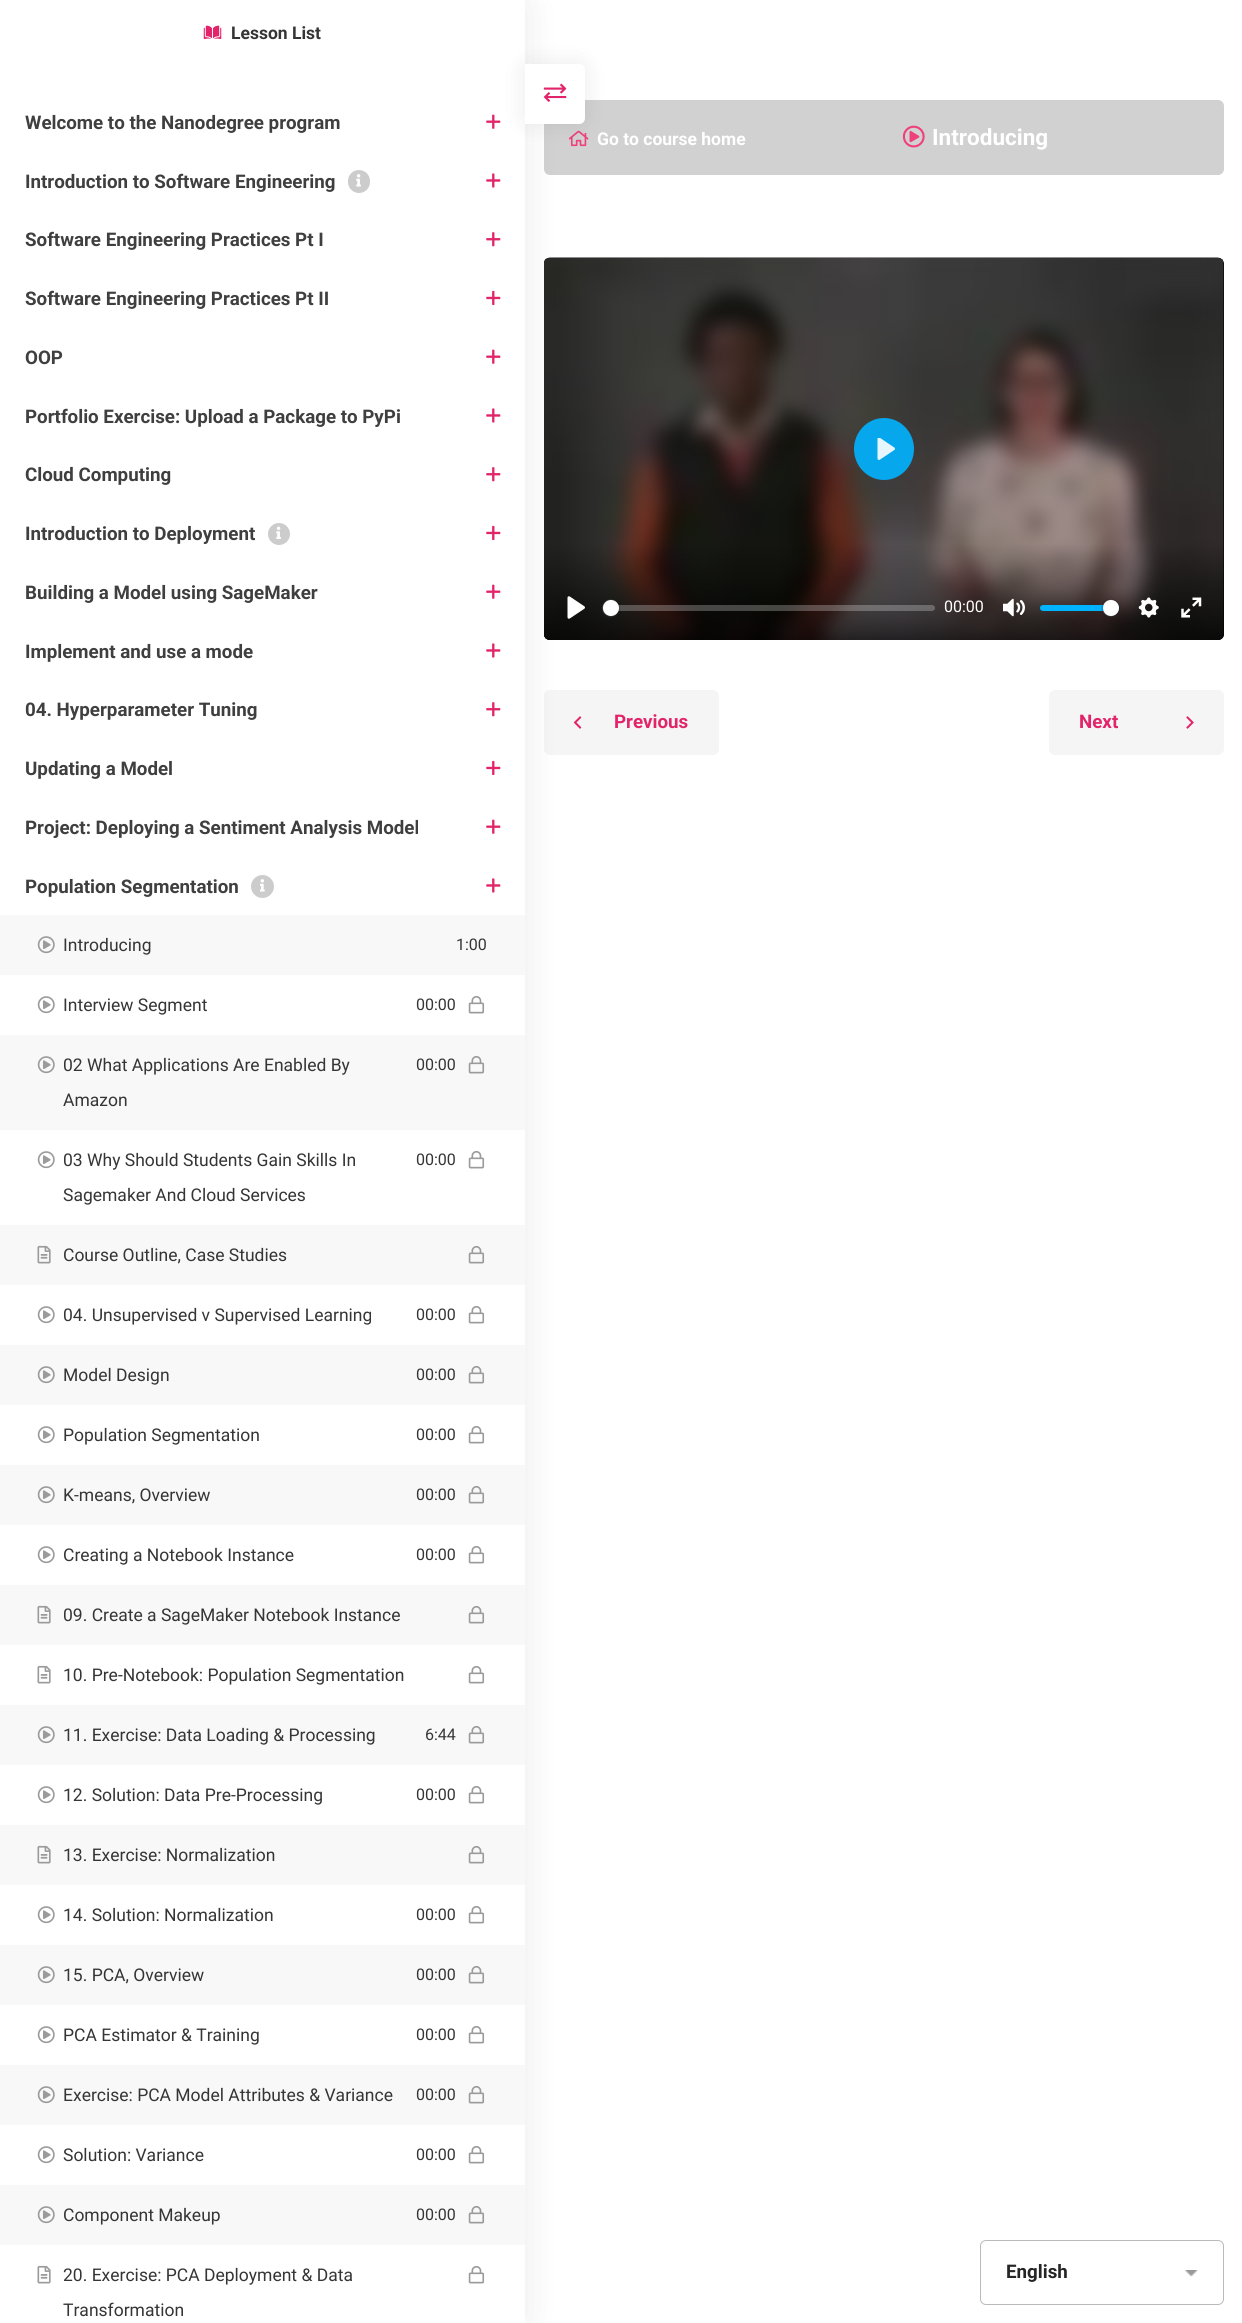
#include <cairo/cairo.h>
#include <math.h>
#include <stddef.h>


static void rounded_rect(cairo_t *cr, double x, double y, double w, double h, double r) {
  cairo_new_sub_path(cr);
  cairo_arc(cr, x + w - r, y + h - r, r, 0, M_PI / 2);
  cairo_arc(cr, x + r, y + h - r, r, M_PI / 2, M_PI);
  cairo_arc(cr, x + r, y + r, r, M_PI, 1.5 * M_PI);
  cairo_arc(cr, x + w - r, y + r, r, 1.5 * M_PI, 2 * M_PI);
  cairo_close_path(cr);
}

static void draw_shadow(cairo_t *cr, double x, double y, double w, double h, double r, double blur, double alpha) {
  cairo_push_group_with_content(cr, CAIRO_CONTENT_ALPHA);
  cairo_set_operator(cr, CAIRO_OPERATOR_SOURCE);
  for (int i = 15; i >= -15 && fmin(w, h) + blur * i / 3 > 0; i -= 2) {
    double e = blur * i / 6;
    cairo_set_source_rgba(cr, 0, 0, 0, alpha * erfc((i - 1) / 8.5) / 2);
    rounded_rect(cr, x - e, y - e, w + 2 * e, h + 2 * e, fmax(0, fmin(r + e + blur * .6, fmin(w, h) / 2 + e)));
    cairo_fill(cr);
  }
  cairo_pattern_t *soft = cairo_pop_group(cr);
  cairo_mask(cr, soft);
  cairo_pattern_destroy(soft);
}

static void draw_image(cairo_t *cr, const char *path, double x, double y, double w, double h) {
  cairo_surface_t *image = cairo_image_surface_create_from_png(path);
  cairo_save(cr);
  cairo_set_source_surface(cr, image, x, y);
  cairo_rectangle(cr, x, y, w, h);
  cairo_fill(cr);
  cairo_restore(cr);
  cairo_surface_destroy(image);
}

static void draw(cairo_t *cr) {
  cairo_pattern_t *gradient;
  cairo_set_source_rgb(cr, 1, 1, 1);
  cairo_paint(cr);
  cairo_set_source_rgb(cr, 209 / 255.0, 209 / 255.0, 209 / 255.0);
  rounded_rect(cr, 544, 100, 680, 75, 6);
  cairo_fill(cr);
  draw_image(cr, "images/17.png", 569, 130, 20, 17);
  cairo_save(cr);
  rounded_rect(cr, 544, 258, 680, 382, 5);
  cairo_clip(cr);
  cairo_set_source_rgb(cr, 0, 0, 0);
  rounded_rect(cr, 544, 258, 680, 382, 6);
  cairo_fill(cr);
  cairo_restore(cr);
  draw_image(cr, "images/19.png", 544, 257, 680, 383);
  cairo_save(cr);
  rounded_rect(cr, 544, 258, 680, 382, 5);
  cairo_clip(cr);
  gradient = cairo_pattern_create_linear(884, 544, 884, 640);
  cairo_pattern_add_color_stop_rgba(gradient, 0, 0, 0, 0, 0);
  cairo_pattern_add_color_stop_rgba(gradient, 1, 0, 0, 0, 0.75);
  cairo_set_source(cr, gradient);
  cairo_pattern_destroy(gradient);
  cairo_new_path(cr);
  cairo_move_to(cr, 544, 544);
  cairo_line_to(cr, 1224, 544);
  cairo_line_to(cr, 1224, 634);
  cairo_curve_to(cr, 1224, 637.5, 1221.5, 640, 1218, 640);
  cairo_line_to(cr, 550, 640);
  cairo_curve_to(cr, 546.5, 640, 544, 637.5, 544, 634);
  cairo_close_path(cr);
  cairo_fill(cr);
  cairo_restore(cr);
  draw_image(cr, "images/21.png", 567, 596, 18, 23);
  cairo_set_source_rgb(cr, 245 / 255.0, 245 / 255.0, 245 / 255.0);
  rounded_rect(cr, 544, 690, 175, 65, 6);
  cairo_fill(cr);
  draw_image(cr, "images/25.png", 573, 716, 9, 13);
  cairo_set_source_rgb(cr, 0, 0, 0);
  draw_shadow(cr, 0, 0, 525, 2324, 6, 19, 0.08);
  cairo_set_source_rgb(cr, 1, 1, 1);
  cairo_rectangle(cr, 0, 0, 525, 2323);
  cairo_fill(cr);
  draw_image(cr, "images/1.png", 203, 25, 19, 14);
  cairo_set_source_rgb(cr, 0, 0, 0);
  draw_shadow(cr, 525, 64, 60, 60, 6, 12.5, 0.08);
  draw_image(cr, "images/2.png", 486, 114, 15, 15);
  cairo_set_source_rgb(cr, 204 / 255.0, 204 / 255.0, 204 / 255.0);
  rounded_rect(cr, 348, 170, 22, 23, 11);
  cairo_fill(cr);
  draw_image(cr, "images/3.png", 356, 174, 5, 13);
  draw_image(cr, "images/4.png", 486, 173, 15, 15);
  draw_image(cr, "images/5.png", 486, 232, 15, 15);
  draw_image(cr, "images/6.png", 486, 290, 15, 15);
  draw_image(cr, "images/7.png", 486, 349, 15, 15);
  draw_image(cr, "images/4.png", 486, 408, 15, 15);
  draw_image(cr, "images/5.png", 486, 467, 15, 15);
  cairo_arc(cr, 279, 534, 11, 0, 2 * M_PI);
  cairo_fill(cr);
  draw_image(cr, "images/8.png", 276, 526, 5, 13);
  draw_image(cr, "images/6.png", 486, 525, 15, 15);
  draw_image(cr, "images/7.png", 486, 584, 15, 15);
  draw_image(cr, "images/4.png", 486, 643, 15, 15);
  draw_image(cr, "images/5.png", 486, 702, 15, 15);
  draw_image(cr, "images/6.png", 486, 760, 15, 15);
  draw_image(cr, "images/7.png", 486, 819, 15, 15);
  cairo_arc(cr, 262.5, 886.5, 11.5, 0, 2 * M_PI);
  cairo_fill(cr);
  draw_image(cr, "images/9.png", 260, 879, 5, 13);
  draw_image(cr, "images/4.png", 486, 878, 15, 15);
  cairo_set_source_rgb(cr, 248 / 255.0, 248 / 255.0, 248 / 255.0);
  cairo_rectangle(cr, 0, 915, 525, 60);
  cairo_fill(cr);
  draw_image(cr, "images/10.png", 37, 936, 18, 18);
  draw_image(cr, "images/11.png", 37, 996, 18, 18);
  draw_image(cr, "images/12.png", 468, 995, 17, 19);
  cairo_rectangle(cr, 0, 1035, 525, 95);
  cairo_fill(cr);
  draw_image(cr, "images/10.png", 37, 1056, 18, 18);
  draw_image(cr, "images/13.png", 468, 1055, 17, 19);
  draw_image(cr, "images/11.png", 37, 1151, 18, 18);
  draw_image(cr, "images/12.png", 468, 1150, 17, 19);
  cairo_rectangle(cr, 0, 1225, 525, 60);
  cairo_fill(cr);
  draw_image(cr, "images/14.png", 37, 1245, 14, 19);
  draw_image(cr, "images/13.png", 468, 1245, 17, 19);
  draw_image(cr, "images/11.png", 37, 1306, 18, 18);
  draw_image(cr, "images/12.png", 468, 1305, 17, 19);
  cairo_rectangle(cr, 0, 1345, 525, 60);
  cairo_fill(cr);
  draw_image(cr, "images/10.png", 37, 1366, 18, 18);
  draw_image(cr, "images/13.png", 468, 1365, 17, 19);
  draw_image(cr, "images/11.png", 37, 1426, 18, 18);
  draw_image(cr, "images/12.png", 468, 1425, 17, 19);
  cairo_rectangle(cr, 0, 1465, 525, 60);
  cairo_fill(cr);
  draw_image(cr, "images/10.png", 37, 1486, 18, 18);
  draw_image(cr, "images/13.png", 468, 1485, 17, 19);
  draw_image(cr, "images/11.png", 37, 1546, 18, 18);
  draw_image(cr, "images/12.png", 468, 1545, 17, 19);
  cairo_rectangle(cr, 0, 1585, 525, 60);
  cairo_fill(cr);
  draw_image(cr, "images/14.png", 37, 1605, 14, 19);
  draw_image(cr, "images/13.png", 468, 1605, 17, 19);
  draw_image(cr, "images/15.png", 37, 1665, 14, 19);
  draw_image(cr, "images/12.png", 468, 1665, 17, 19);
  cairo_rectangle(cr, 0, 1705, 525, 60);
  cairo_fill(cr);
  draw_image(cr, "images/10.png", 37, 1726, 18, 18);
  draw_image(cr, "images/13.png", 468, 1725, 17, 19);
  draw_image(cr, "images/11.png", 37, 1786, 18, 18);
  draw_image(cr, "images/12.png", 468, 1785, 17, 19);
  cairo_rectangle(cr, 0, 1825, 525, 60);
  cairo_fill(cr);
  draw_image(cr, "images/14.png", 37, 1845, 14, 19);
  draw_image(cr, "images/13.png", 468, 1845, 17, 19);
  draw_image(cr, "images/11.png", 37, 1906, 18, 18);
  draw_image(cr, "images/12.png", 468, 1905, 17, 19);
  cairo_rectangle(cr, 0, 1945, 525, 60);
  cairo_fill(cr);
  draw_image(cr, "images/10.png", 37, 1966, 18, 18);
  draw_image(cr, "images/13.png", 468, 1965, 17, 19);
  draw_image(cr, "images/11.png", 37, 2026, 18, 18);
  draw_image(cr, "images/12.png", 468, 2025, 17, 19);
  cairo_rectangle(cr, 0, 2065, 525, 60);
  cairo_fill(cr);
  draw_image(cr, "images/10.png", 37, 2086, 18, 18);
  draw_image(cr, "images/13.png", 468, 2085, 17, 19);
  draw_image(cr, "images/11.png", 37, 2146, 18, 18);
  draw_image(cr, "images/12.png", 468, 2145, 17, 19);
  cairo_rectangle(cr, 0, 2185, 525, 60);
  cairo_fill(cr);
  draw_image(cr, "images/10.png", 37, 2206, 18, 18);
  draw_image(cr, "images/13.png", 468, 2205, 17, 19);
  draw_image(cr, "images/15.png", 37, 2265, 14, 19);
  draw_image(cr, "images/12.png", 468, 2265, 17, 19);
  cairo_set_source_rgb(cr, 1, 1, 1);
  cairo_new_path(cr);
  cairo_move_to(cr, 525, 64);
  cairo_line_to(cr, 579, 64);
  cairo_curve_to(cr, 582.5, 64, 585, 66.5, 585, 70);
  cairo_line_to(cr, 585, 118);
  cairo_curve_to(cr, 585, 121.5, 582.5, 124, 579, 124);
  cairo_line_to(cr, 525, 124);
  cairo_close_path(cr);
  cairo_fill(cr);
  draw_image(cr, "images/16.png", 543, 83, 24, 19);
  draw_image(cr, "images/18.png", 902, 125, 23, 23);
  cairo_set_source_rgba(cr, 0, 179 / 255.0, 1, 0.9);
  cairo_new_path(cr);
  cairo_move_to(cr, 884, 418);
  cairo_curve_to(cr, 900.5, 418, 914, 432, 914, 449);
  cairo_curve_to(cr, 914, 466, 900.5, 480, 884, 480);
  cairo_curve_to(cr, 867.5, 480, 854, 466, 854, 449);
  cairo_curve_to(cr, 854, 432, 867.5, 418, 884, 418);
  cairo_close_path(cr);
  cairo_fill(cr);
  draw_image(cr, "images/20.png", 877, 438, 18, 22);
  cairo_set_source_rgba(cr, 1, 1, 1, 0.25);
  rounded_rect(cr, 603, 605, 332, 6, 3);
  cairo_fill(cr);
  cairo_set_source_rgba(cr, 35 / 255.0, 40 / 255.0, 47 / 255.0, 0.2);
  cairo_new_path(cr);
  cairo_move_to(cr, 610.5, 599);
  cairo_curve_to(cr, 623, 599, 623, 618, 610.5, 618);
  cairo_curve_to(cr, 598, 618, 598, 599, 610.5, 599);
  cairo_close_path(cr);
  cairo_fill(cr);
  cairo_set_source_rgb(cr, 35 / 255.0, 40 / 255.0, 47 / 255.0);
  draw_shadow(cr, 603, 601, 16, 17, 8, 0.5, 0.15);
  cairo_set_source_rgb(cr, 28 / 255.0, 28 / 255.0, 25 / 255.0);
  cairo_new_path(cr);
  cairo_move_to(cr, 606.5, 595.5);
  cairo_line_to(cr, 614.5, 595.5);
  cairo_line_to(cr, 610.5, 599.5);
  cairo_close_path(cr);
  cairo_fill(cr);
  cairo_set_source_rgb(cr, 1, 1, 1);
  cairo_arc(cr, 611, 608, 8, 0, 2 * M_PI);
  cairo_fill(cr);
  draw_image(cr, "images/22.png", 1003, 598, 22, 19);
  cairo_set_source_rgb(cr, 0, 179 / 255.0, 1);
  rounded_rect(cr, 1040, 605, 79, 6, 3);
  cairo_fill(cr);
  cairo_set_source_rgba(cr, 35 / 255.0, 40 / 255.0, 47 / 255.0, 0.2);
  cairo_new_path(cr);
  cairo_move_to(cr, 1110.5, 599);
  cairo_curve_to(cr, 1123, 599, 1123, 618, 1110.5, 618);
  cairo_curve_to(cr, 1098, 618, 1098, 599, 1110.5, 599);
  cairo_close_path(cr);
  cairo_fill(cr);
  cairo_set_source_rgb(cr, 35 / 255.0, 40 / 255.0, 47 / 255.0);
  draw_shadow(cr, 1103, 601, 16, 17, 8, 0.5, 0.15);
  cairo_set_source_rgb(cr, 1, 1, 1);
  cairo_arc(cr, 1111, 608, 8, 0, 2 * M_PI);
  cairo_fill(cr);
  draw_image(cr, "images/23.png", 1138, 597, 21, 21);
  draw_image(cr, "images/24.png", 1181, 597, 21, 21);
  cairo_set_source_rgb(cr, 245 / 255.0, 245 / 255.0, 245 / 255.0);
  rounded_rect(cr, 1049, 690, 175, 65, 6);
  cairo_fill(cr);
  draw_image(cr, "images/26.png", 1186, 716, 8, 13);
  draw_image(cr, "images/27.png", 1185, 2270, 13, 7);
  rounded_rect(cr, 980.5, 2240.5, 243, 64, 5.5);
  cairo_set_source_rgb(cr, 186 / 255.0, 186 / 255.0, 186 / 255.0);
  cairo_set_line_width(cr, 1);
  cairo_stroke(cr);
  cairo_select_font_face(cr, "Roboto", CAIRO_FONT_SLANT_NORMAL, CAIRO_FONT_WEIGHT_BOLD);
  cairo_set_font_size(cr, 17.5);
  cairo_set_source_rgb(cr, 53 / 255.0, 53 / 255.0, 53 / 255.0);
  cairo_move_to(cr, 231, 39);
  cairo_show_text(cr, "Lesson List");
  cairo_set_font_size(cr, 18.75);
  cairo_set_source_rgb(cr, 63 / 255.0, 63 / 255.0, 63 / 255.0);
  cairo_move_to(cr, 25, 129);
  cairo_show_text(cr, "Welcome to the Nanodegree program");
  cairo_move_to(cr, 25, 188);
  cairo_show_text(cr, "Introduction to Software Engineering");
  cairo_move_to(cr, 25, 246);
  cairo_show_text(cr, "Software Engineering Practices Pt I");
  cairo_move_to(cr, 25, 305);
  cairo_show_text(cr, "Software Engineering Practices Pt II");
  cairo_move_to(cr, 25, 364);
  cairo_show_text(cr, "OOP");
  cairo_move_to(cr, 25, 423);
  cairo_show_text(cr, "Portfolio Exercise: Upload a Package to PyPi");
  cairo_move_to(cr, 25, 481);
  cairo_show_text(cr, "Cloud Computing");
  cairo_move_to(cr, 25, 540);
  cairo_show_text(cr, "Introduction to Deployment");
  cairo_move_to(cr, 25, 599);
  cairo_show_text(cr, "Building a Model using SageMaker");
  cairo_move_to(cr, 25, 658);
  cairo_show_text(cr, "Implement and use a mode");
  cairo_move_to(cr, 25, 716);
  cairo_show_text(cr, "04. Hyperparameter Tuning");
  cairo_move_to(cr, 25, 775);
  cairo_show_text(cr, "Updating a Model");
  cairo_move_to(cr, 25, 834);
  cairo_show_text(cr, "Project: Deploying a Sentiment Analysis Model");
  cairo_move_to(cr, 25, 893);
  cairo_show_text(cr, "Population Segmentation");
  cairo_select_font_face(cr, "Roboto", CAIRO_FONT_SLANT_NORMAL, CAIRO_FONT_WEIGHT_NORMAL);
  cairo_set_font_size(cr, 17.5);
  cairo_set_source_rgb(cr, 53 / 255.0, 53 / 255.0, 53 / 255.0);
  cairo_move_to(cr, 63, 951);
  cairo_show_text(cr, "Introducing");
  cairo_set_font_size(cr, 16);
  cairo_move_to(cr, 456, 950);
  cairo_show_text(cr, "1:00");
  cairo_set_font_size(cr, 17.5);
  cairo_move_to(cr, 63, 1011);
  cairo_show_text(cr, "Interview Segment");
  cairo_set_font_size(cr, 16);
  cairo_move_to(cr, 416, 1010);
  cairo_show_text(cr, "00:00");
  cairo_set_font_size(cr, 17.5);
  cairo_move_to(cr, 63, 1071);
  cairo_show_text(cr, "02 What Applications Are Enabled By");
  cairo_set_font_size(cr, 16);
  cairo_move_to(cr, 416, 1070);
  cairo_show_text(cr, "00:00");
  cairo_set_font_size(cr, 17.5);
  cairo_move_to(cr, 63, 1106);
  cairo_show_text(cr, "Amazon");
  cairo_move_to(cr, 63, 1166);
  cairo_show_text(cr, "03 Why Should Students Gain Skills In");
  cairo_set_font_size(cr, 16);
  cairo_move_to(cr, 416, 1165);
  cairo_show_text(cr, "00:00");
  cairo_set_font_size(cr, 17.5);
  cairo_move_to(cr, 63, 1201);
  cairo_show_text(cr, "Sagemaker And Cloud Services");
  cairo_move_to(cr, 63, 1261);
  cairo_show_text(cr, "Course Outline, Case Studies");
  cairo_move_to(cr, 63, 1321);
  cairo_show_text(cr, "04. Unsupervised v Supervised Learning");
  cairo_set_font_size(cr, 16);
  cairo_move_to(cr, 416, 1320);
  cairo_show_text(cr, "00:00");
  cairo_set_font_size(cr, 17.5);
  cairo_move_to(cr, 63, 1381);
  cairo_show_text(cr, "Model Design");
  cairo_set_font_size(cr, 16);
  cairo_move_to(cr, 416, 1380);
  cairo_show_text(cr, "00:00");
  cairo_set_font_size(cr, 17.5);
  cairo_move_to(cr, 63, 1441);
  cairo_show_text(cr, "Population Segmentation");
  cairo_set_font_size(cr, 16);
  cairo_move_to(cr, 416, 1440);
  cairo_show_text(cr, "00:00");
  cairo_set_font_size(cr, 17.5);
  cairo_move_to(cr, 63, 1501);
  cairo_show_text(cr, "K-means, Overview");
  cairo_set_font_size(cr, 16);
  cairo_move_to(cr, 416, 1500);
  cairo_show_text(cr, "00:00");
  cairo_set_font_size(cr, 17.5);
  cairo_move_to(cr, 63, 1561);
  cairo_show_text(cr, "Creating a Notebook Instance");
  cairo_set_font_size(cr, 16);
  cairo_move_to(cr, 416, 1560);
  cairo_show_text(cr, "00:00");
  cairo_set_font_size(cr, 17.5);
  cairo_move_to(cr, 63, 1621);
  cairo_show_text(cr, "09. Create a SageMaker Notebook Instance");
  cairo_move_to(cr, 63, 1681);
  cairo_show_text(cr, "10. Pre-Notebook: Population Segmentation");
  cairo_move_to(cr, 63, 1741);
  cairo_show_text(cr, "11. Exercise: Data Loading & Processing");
  cairo_set_font_size(cr, 16);
  cairo_move_to(cr, 425, 1740);
  cairo_show_text(cr, "6:44");
  cairo_set_font_size(cr, 17.5);
  cairo_move_to(cr, 63, 1801);
  cairo_show_text(cr, "12. Solution: Data Pre-Processing");
  cairo_set_font_size(cr, 16);
  cairo_move_to(cr, 416, 1800);
  cairo_show_text(cr, "00:00");
  cairo_set_font_size(cr, 17.5);
  cairo_move_to(cr, 63, 1861);
  cairo_show_text(cr, "13. Exercise: Normalization");
  cairo_move_to(cr, 63, 1921);
  cairo_show_text(cr, "14. Solution: Normalization");
  cairo_set_font_size(cr, 16);
  cairo_move_to(cr, 416, 1920);
  cairo_show_text(cr, "00:00");
  cairo_set_font_size(cr, 17.5);
  cairo_move_to(cr, 63, 1981);
  cairo_show_text(cr, "15. PCA, Overview");
  cairo_set_font_size(cr, 16);
  cairo_move_to(cr, 416, 1980);
  cairo_show_text(cr, "00:00");
  cairo_set_font_size(cr, 17.5);
  cairo_move_to(cr, 63, 2041);
  cairo_show_text(cr, "PCA Estimator & Training");
  cairo_set_font_size(cr, 16);
  cairo_move_to(cr, 416, 2040);
  cairo_show_text(cr, "00:00");
  cairo_set_font_size(cr, 17.5);
  cairo_move_to(cr, 63, 2101);
  cairo_show_text(cr, "Exercise: PCA Model Attributes & Variance");
  cairo_set_font_size(cr, 16);
  cairo_move_to(cr, 416, 2100);
  cairo_show_text(cr, "00:00");
  cairo_set_font_size(cr, 17.5);
  cairo_move_to(cr, 63, 2161);
  cairo_show_text(cr, "Solution: Variance");
  cairo_set_font_size(cr, 16);
  cairo_move_to(cr, 416, 2160);
  cairo_show_text(cr, "00:00");
  cairo_set_font_size(cr, 17.5);
  cairo_move_to(cr, 63, 2221);
  cairo_show_text(cr, "Component Makeup");
  cairo_set_font_size(cr, 16);
  cairo_move_to(cr, 416, 2220);
  cairo_show_text(cr, "00:00");
  cairo_set_font_size(cr, 17.5);
  cairo_move_to(cr, 63, 2281);
  cairo_show_text(cr, "20. Exercise: PCA Deployment & Data");
  cairo_move_to(cr, 63, 2316);
  cairo_show_text(cr, "Transformation");
  cairo_select_font_face(cr, "Roboto", CAIRO_FONT_SLANT_NORMAL, CAIRO_FONT_WEIGHT_BOLD);
  cairo_set_source_rgb(cr, 1, 1, 1);
  cairo_move_to(cr, 597, 145);
  cairo_show_text(cr, "Go to course home");
  cairo_set_font_size(cr, 22.5);
  cairo_move_to(cr, 932, 145);
  cairo_show_text(cr, "Introducing");
  cairo_select_font_face(cr, "Roboto", CAIRO_FONT_SLANT_NORMAL, CAIRO_FONT_WEIGHT_NORMAL);
  cairo_set_font_size(cr, 16);
  cairo_move_to(cr, 944, 612);
  cairo_show_text(cr, "00:00");
  cairo_select_font_face(cr, "Roboto", CAIRO_FONT_SLANT_NORMAL, CAIRO_FONT_WEIGHT_BOLD);
  cairo_set_font_size(cr, 18.75);
  cairo_set_source_rgb(cr, 226 / 255.0, 36 / 255.0, 106 / 255.0);
  cairo_move_to(cr, 614, 728);
  cairo_show_text(cr, "Previous");
  cairo_move_to(cr, 1079, 728);
  cairo_show_text(cr, "Next");
  cairo_save(cr);
  cairo_rectangle(cr, 1006, 2264, 173, 19);
  cairo_clip(cr);
  cairo_set_source_rgb(cr, 37 / 255.0, 37 / 255.0, 37 / 255.0);
  cairo_move_to(cr, 1006, 2278);
  cairo_show_text(cr, "English");
  cairo_restore(cr);
}

int main(void) {
  cairo_surface_t *surface = cairo_image_surface_create(CAIRO_FORMAT_RGB24, 1242, 2323);
  cairo_t *cr = cairo_create(surface);
  cairo_font_options_t *options = cairo_font_options_create();
  cairo_font_options_set_hint_metrics(options, CAIRO_HINT_METRICS_OFF);
  cairo_font_options_set_hint_style(options, CAIRO_HINT_STYLE_NONE);
  cairo_set_font_options(cr, options);
  cairo_set_miter_limit(cr, 4);
  draw(cr);
  cairo_surface_write_to_png(surface, "out.png");
  cairo_font_options_destroy(options);
  cairo_destroy(cr);
  cairo_surface_destroy(surface);
  return 0;
}
